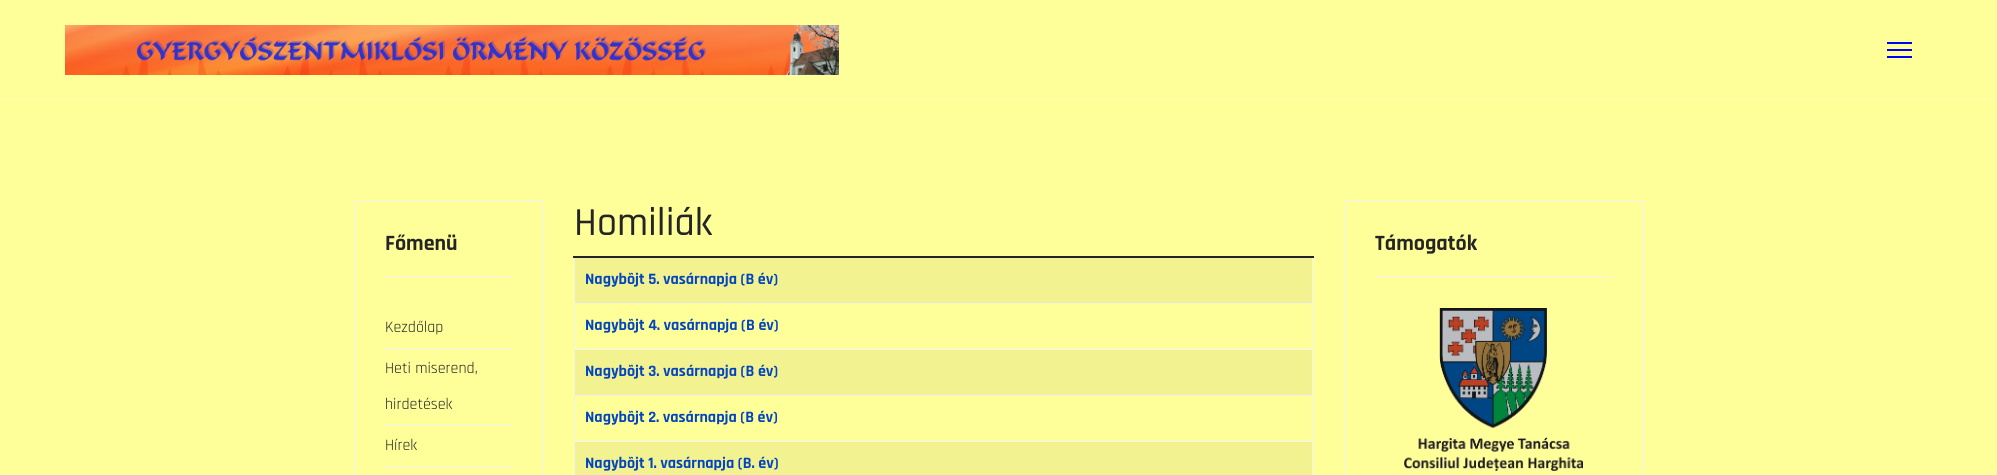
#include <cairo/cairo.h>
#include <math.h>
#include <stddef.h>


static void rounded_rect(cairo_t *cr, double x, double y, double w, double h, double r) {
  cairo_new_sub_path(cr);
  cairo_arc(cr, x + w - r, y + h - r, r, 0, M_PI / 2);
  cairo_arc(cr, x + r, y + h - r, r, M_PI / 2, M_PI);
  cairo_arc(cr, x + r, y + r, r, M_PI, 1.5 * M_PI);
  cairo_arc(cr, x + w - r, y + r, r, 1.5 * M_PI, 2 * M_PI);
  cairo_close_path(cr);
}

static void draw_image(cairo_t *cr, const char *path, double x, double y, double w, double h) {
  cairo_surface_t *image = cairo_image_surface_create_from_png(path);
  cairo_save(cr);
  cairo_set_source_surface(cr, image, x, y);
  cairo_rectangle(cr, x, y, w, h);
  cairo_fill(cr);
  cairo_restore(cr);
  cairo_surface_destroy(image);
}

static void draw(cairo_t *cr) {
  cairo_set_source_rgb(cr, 1, 1, 153 / 255.0);
  cairo_paint(cr);
  cairo_set_source_rgb(cr, 1, 1, 171 / 255.0);
  cairo_rectangle(cr, 0, 99, 1997, 1);
  cairo_fill(cr);
  draw_image(cr, "images/1.png", 65, 25, 774, 50);
  cairo_set_source_rgb(cr, 0, 0, 1);
  cairo_rectangle(cr, 1887, 42, 25, 2);
  cairo_fill(cr);
  cairo_rectangle(cr, 1887, 49, 25, 2);
  cairo_fill(cr);
  cairo_rectangle(cr, 1887, 56, 25, 2);
  cairo_fill(cr);
  rounded_rect(cr, 354.5, 200.5, 189, 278, 2.5);
  cairo_set_source_rgb(cr, 243 / 255.0, 243 / 255.0, 243 / 255.0);
  cairo_set_line_width(cr, 1);
  cairo_stroke(cr);
  cairo_rectangle(cr, 385, 277, 128, 1);
  cairo_fill(cr);
  cairo_rectangle(cr, 385, 348, 128, 1);
  cairo_fill(cr);
  cairo_rectangle(cr, 385, 425, 128, 1);
  cairo_fill(cr);
  cairo_rectangle(cr, 385, 466, 128, 1);
  cairo_fill(cr);
  cairo_set_source_rgb(cr, 242 / 255.0, 242 / 255.0, 242 / 255.0);
  cairo_rectangle(cr, 574, 303, 740, 1);
  cairo_fill(cr);
  cairo_rectangle(cr, 574, 349, 740, 1);
  cairo_fill(cr);
  cairo_rectangle(cr, 574, 395, 740, 1);
  cairo_fill(cr);
  cairo_rectangle(cr, 574, 441, 740, 1);
  cairo_fill(cr);
  cairo_rectangle(cr, 1313, 441, 1, 34);
  cairo_fill(cr);
  cairo_rectangle(cr, 1313, 395, 1, 47);
  cairo_fill(cr);
  cairo_rectangle(cr, 1313, 349, 1, 47);
  cairo_fill(cr);
  cairo_rectangle(cr, 1313, 257, 1, 93);
  cairo_fill(cr);
  cairo_rectangle(cr, 574, 441, 1, 34);
  cairo_fill(cr);
  cairo_rectangle(cr, 574, 395, 1, 47);
  cairo_fill(cr);
  cairo_rectangle(cr, 574, 349, 1, 47);
  cairo_fill(cr);
  cairo_rectangle(cr, 574, 257, 1, 93);
  cairo_fill(cr);
  cairo_set_source_rgb(cr, 33 / 255.0, 37 / 255.0, 41 / 255.0);
  cairo_rectangle(cr, 573, 256, 741, 2);
  cairo_fill(cr);
  cairo_set_source_rgb(cr, 242 / 255.0, 242 / 255.0, 145 / 255.0);
  cairo_rectangle(cr, 575, 258, 737, 45);
  cairo_fill(cr);
  cairo_rectangle(cr, 575, 350, 737, 45);
  cairo_fill(cr);
  cairo_rectangle(cr, 575, 442, 737, 33);
  cairo_fill(cr);
  rounded_rect(cr, 1344.5, 200.5, 299, 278, 2.5);
  cairo_set_source_rgb(cr, 243 / 255.0, 243 / 255.0, 243 / 255.0);
  cairo_stroke(cr);
  cairo_rectangle(cr, 1375, 277, 238, 1);
  cairo_fill(cr);
  draw_image(cr, "images/2.png", 1404, 308, 179, 163);
  cairo_select_font_face(cr, "Rajdhani", CAIRO_FONT_SLANT_NORMAL, CAIRO_FONT_WEIGHT_BOLD);
  cairo_set_font_size(cr, 22);
  cairo_set_source_rgb(cr, 37 / 255.0, 37 / 255.0, 37 / 255.0);
  cairo_move_to(cr, 385, 250);
  cairo_show_text(cr, "Főmenü");
  cairo_select_font_face(cr, "Rajdhani", CAIRO_FONT_SLANT_NORMAL, CAIRO_FONT_WEIGHT_NORMAL);
  cairo_set_font_size(cr, 16);
  cairo_move_to(cr, 385, 332);
  cairo_show_text(cr, "Kezdőlap");
  cairo_move_to(cr, 385, 373);
  cairo_show_text(cr, "Heti miserend,");
  cairo_move_to(cr, 385, 409);
  cairo_show_text(cr, "hirdetések");
  cairo_move_to(cr, 385, 450);
  cairo_show_text(cr, "Hírek");
  cairo_select_font_face(cr, "Rajdhani Medium", CAIRO_FONT_SLANT_NORMAL, CAIRO_FONT_WEIGHT_NORMAL);
  cairo_set_font_size(cr, 40);
  cairo_move_to(cr, 574, 235);
  cairo_show_text(cr, "Homiliák");
  cairo_select_font_face(cr, "Rajdhani", CAIRO_FONT_SLANT_NORMAL, CAIRO_FONT_WEIGHT_BOLD);
  cairo_set_font_size(cr, 16);
  cairo_set_source_rgb(cr, 3 / 255.0, 69 / 255.0, 191 / 255.0);
  cairo_move_to(cr, 585, 284);
  cairo_show_text(cr, "Nagybõjt 5. vasárnapja (B év)");
  cairo_move_to(cr, 585, 330);
  cairo_show_text(cr, "Nagybõjt 4. vasárnapja (B év)");
  cairo_move_to(cr, 585, 376);
  cairo_show_text(cr, "Nagybõjt 3. vasárnapja (B év)");
  cairo_move_to(cr, 585, 422);
  cairo_show_text(cr, "Nagybõjt 2. vasárnapja (B év)");
  cairo_move_to(cr, 585, 468);
  cairo_show_text(cr, "Nagybõjt 1. vasárnapja (B. év)");
  cairo_set_font_size(cr, 22);
  cairo_set_source_rgb(cr, 37 / 255.0, 37 / 255.0, 37 / 255.0);
  cairo_move_to(cr, 1375, 250);
  cairo_show_text(cr, "Támogatók");
}

int main(void) {
  cairo_surface_t *surface = cairo_image_surface_create(CAIRO_FORMAT_RGB24, 1997, 475);
  cairo_t *cr = cairo_create(surface);
  cairo_font_options_t *options = cairo_font_options_create();
  cairo_font_options_set_hint_metrics(options, CAIRO_HINT_METRICS_OFF);
  cairo_font_options_set_hint_style(options, CAIRO_HINT_STYLE_NONE);
  cairo_set_font_options(cr, options);
  cairo_set_miter_limit(cr, 4);
  draw(cr);
  cairo_surface_write_to_png(surface, "out.png");
  cairo_font_options_destroy(options);
  cairo_destroy(cr);
  cairo_surface_destroy(surface);
  return 0;
}
